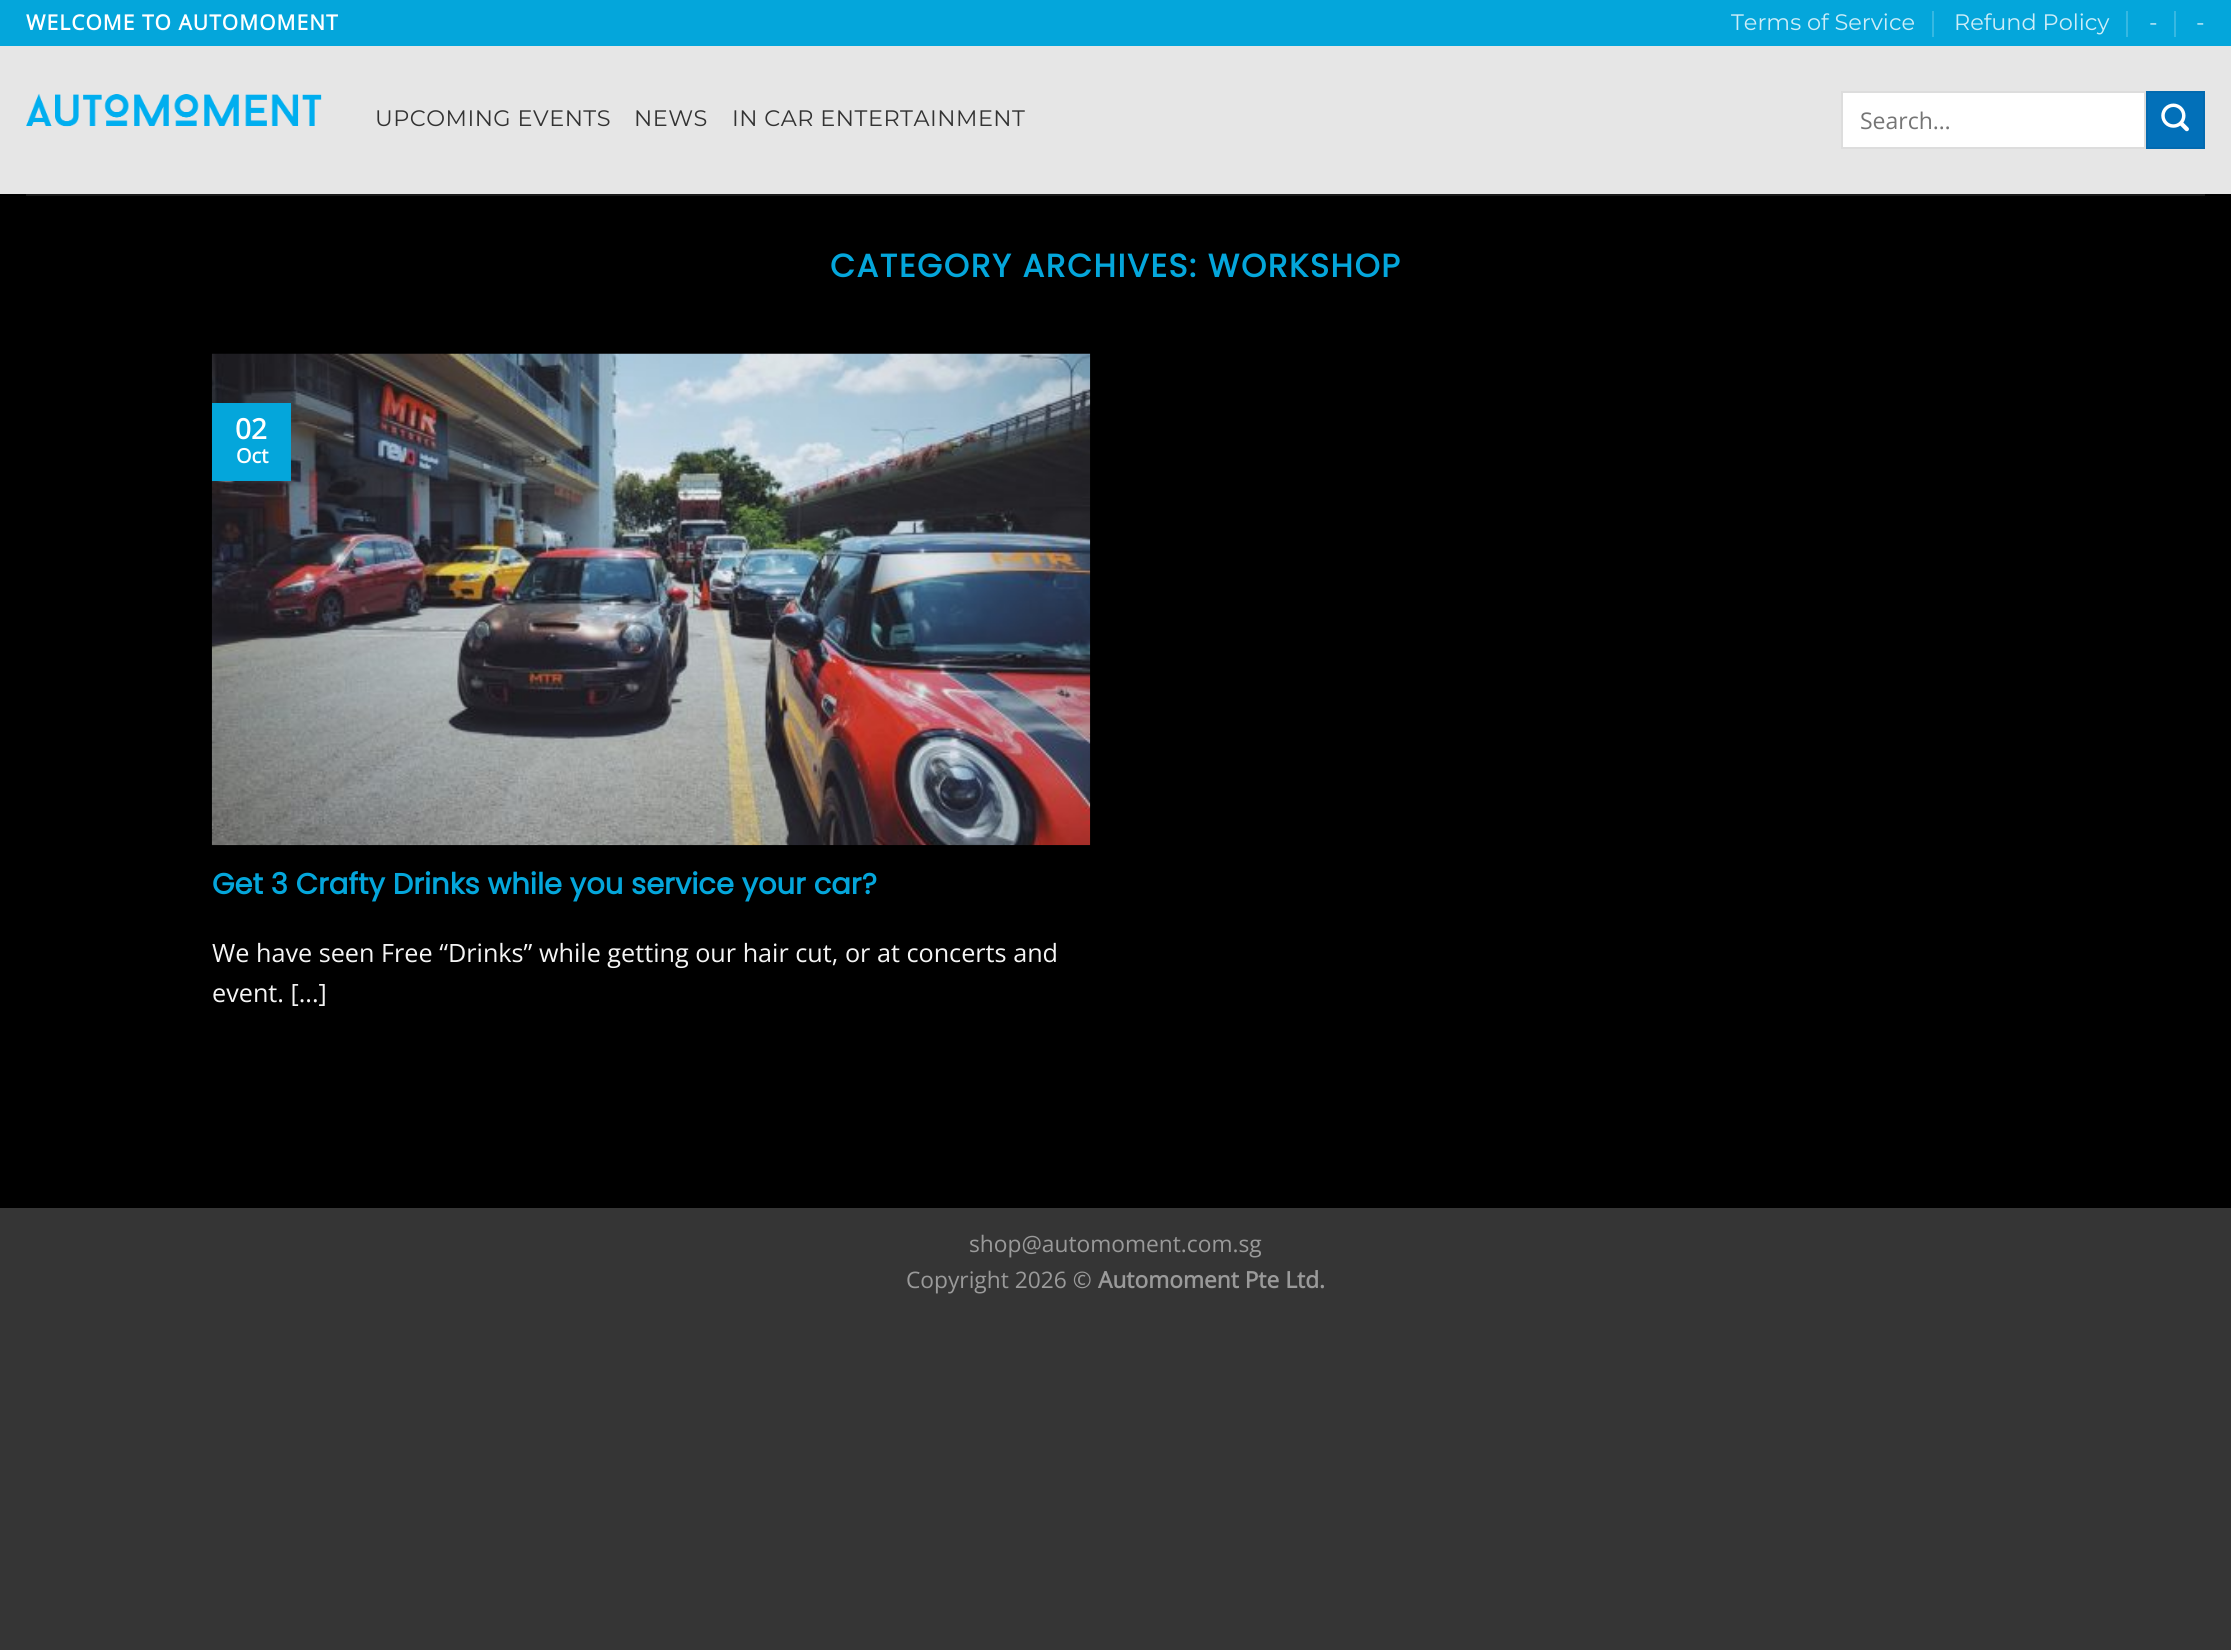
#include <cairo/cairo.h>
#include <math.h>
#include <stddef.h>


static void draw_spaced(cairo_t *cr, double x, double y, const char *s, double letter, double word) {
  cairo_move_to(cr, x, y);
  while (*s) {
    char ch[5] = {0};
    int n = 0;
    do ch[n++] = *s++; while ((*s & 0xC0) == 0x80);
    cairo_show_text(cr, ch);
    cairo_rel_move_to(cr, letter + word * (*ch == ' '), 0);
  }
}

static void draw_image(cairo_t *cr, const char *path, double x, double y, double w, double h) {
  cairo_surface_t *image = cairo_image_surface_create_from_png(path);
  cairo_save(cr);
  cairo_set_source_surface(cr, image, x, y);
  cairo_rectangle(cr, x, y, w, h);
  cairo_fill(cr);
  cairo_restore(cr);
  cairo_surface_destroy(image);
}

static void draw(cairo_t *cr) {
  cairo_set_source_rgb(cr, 53 / 255.0, 53 / 255.0, 53 / 255.0);
  cairo_paint(cr);
  cairo_set_source_rgb(cr, 0, 0, 0);
  cairo_rectangle(cr, 0, 194, 2231, 1014);
  cairo_fill(cr);
  cairo_set_source_rgb(cr, 4 / 255.0, 166 / 255.0, 219 / 255.0);
  cairo_rectangle(cr, 0, 0, 2231, 46);
  cairo_fill(cr);
  cairo_set_source_rgb(cr, 54 / 255.0, 184 / 255.0, 226 / 255.0);
  cairo_rectangle(cr, 1932, 11, 2, 26);
  cairo_fill(cr);
  cairo_rectangle(cr, 2126, 11, 2, 26);
  cairo_fill(cr);
  cairo_rectangle(cr, 2174, 11, 2, 26);
  cairo_fill(cr);
  cairo_set_source_rgb(cr, 230 / 255.0, 230 / 255.0, 230 / 255.0);
  cairo_rectangle(cr, 0, 46, 2231, 148);
  cairo_fill(cr);
  draw_image(cr, "images/1.png", 26, 93, 296, 34);
  cairo_set_source_rgb(cr, 1, 1, 1);
  cairo_rectangle(cr, 1842, 92, 303, 56);
  cairo_fill_preserve(cr);
  cairo_set_source_rgb(cr, 221 / 255.0, 221 / 255.0, 221 / 255.0);
  cairo_stroke(cr);
  cairo_set_source_rgb(cr, 2 / 255.0, 112 / 255.0, 185 / 255.0);
  cairo_rectangle(cr, 2147, 92, 57, 56);
  cairo_fill_preserve(cr);
  cairo_set_source_rgb(cr, 2 / 255.0, 106 / 255.0, 176 / 255.0);
  cairo_stroke(cr);
  draw_image(cr, "images/2.png", 2161, 103, 28, 29);
  cairo_set_source_rgb(cr, 25 / 255.0, 25 / 255.0, 25 / 255.0);
  cairo_rectangle(cr, 26, 194, 2179, 2);
  cairo_fill(cr);
  draw_image(cr, "images/3.png", 211, 353, 880, 493);
  cairo_set_source_rgb(cr, 4 / 255.0, 166 / 255.0, 219 / 255.0);
  cairo_rectangle(cr, 212, 403, 79, 78);
  cairo_fill(cr);
  cairo_select_font_face(cr, "Open Sans", CAIRO_FONT_SLANT_NORMAL, CAIRO_FONT_WEIGHT_BOLD);
  cairo_set_font_size(cr, 21);
  cairo_set_source_rgb(cr, 1, 1, 1);
  draw_spaced(cr, 26, 30, "WELCOME TO AUTOMOMENT", 1.05, 0);
  cairo_select_font_face(cr, "Montserrat Thin", CAIRO_FONT_SLANT_NORMAL, CAIRO_FONT_WEIGHT_NORMAL);
  cairo_set_font_size(cr, 22.4);
  cairo_set_source_rgb(cr, 205 / 255.0, 237 / 255.0, 248 / 255.0);
  cairo_move_to(cr, 1731, 30);
  cairo_show_text(cr, "Terms of Service");
  cairo_move_to(cr, 1954, 30);
  cairo_show_text(cr, "Refund Policy");
  cairo_move_to(cr, 2149, 30);
  cairo_show_text(cr, "-");
  cairo_move_to(cr, 2196, 30);
  cairo_show_text(cr, "-");
  cairo_set_source_rgb(cr, 51 / 255.0, 51 / 255.0, 51 / 255.0);
  draw_spaced(cr, 375, 126, "UPCOMING EVENTS", 0.5, 0);
  draw_spaced(cr, 634, 126, "NEWS", 0.5, 0);
  draw_spaced(cr, 732, 126, "IN CAR ENTERTAINMENT", 0.5, 0);
  cairo_select_font_face(cr, "Open Sans", CAIRO_FONT_SLANT_NORMAL, CAIRO_FONT_WEIGHT_NORMAL);
  cairo_set_font_size(cr, 23);
  cairo_set_source_rgb(cr, 117 / 255.0, 117 / 255.0, 117 / 255.0);
  cairo_move_to(cr, 1860, 129);
  cairo_show_text(cr, "Search…");
  cairo_select_font_face(cr, "Poppins", CAIRO_FONT_SLANT_NORMAL, CAIRO_FONT_WEIGHT_BOLD);
  cairo_set_font_size(cr, 32.25);
  cairo_set_source_rgb(cr, 4 / 255.0, 166 / 255.0, 219 / 255.0);
  draw_spaced(cr, 830, 277, "CATEGORY ARCHIVES: WORKSHOP", 1.6, 0);
  cairo_select_font_face(cr, "Open Sans", CAIRO_FONT_SLANT_NORMAL, CAIRO_FONT_WEIGHT_BOLD);
  cairo_set_font_size(cr, 28);
  cairo_set_source_rgb(cr, 1, 1, 1);
  cairo_move_to(cr, 235, 439);
  cairo_show_text(cr, "02");
  cairo_set_font_size(cr, 20);
  cairo_move_to(cr, 236, 463);
  cairo_show_text(cr, "Oct");
  cairo_select_font_face(cr, "Poppins", CAIRO_FONT_SLANT_NORMAL, CAIRO_FONT_WEIGHT_BOLD);
  cairo_set_font_size(cr, 29);
  cairo_set_source_rgb(cr, 4 / 255.0, 166 / 255.0, 219 / 255.0);
  cairo_move_to(cr, 212, 894);
  cairo_show_text(cr, "Get 3 Crafty Drinks while you service your car?");
  cairo_select_font_face(cr, "Open Sans", CAIRO_FONT_SLANT_NORMAL, CAIRO_FONT_WEIGHT_NORMAL);
  cairo_set_font_size(cr, 25.2);
  cairo_set_source_rgb(cr, 245 / 255.0, 245 / 255.0, 245 / 255.0);
  cairo_move_to(cr, 212, 962);
  cairo_show_text(cr, "We have seen Free “Drinks” while getting our hair cut, or at concerts and");
  cairo_move_to(cr, 212, 1002);
  cairo_show_text(cr, "event. [...]");
  cairo_set_font_size(cr, 22.75);
  cairo_set_source_rgb(cr, 154 / 255.0, 154 / 255.0, 154 / 255.0);
  cairo_move_to(cr, 969, 1252);
  cairo_show_text(cr, "shop@automoment.com.sg");
  cairo_move_to(cr, 906, 1288);
  cairo_show_text(cr, "Copyright 2026 ©");
  cairo_select_font_face(cr, "Open Sans", CAIRO_FONT_SLANT_NORMAL, CAIRO_FONT_WEIGHT_BOLD);
  cairo_move_to(cr, 1098, 1288);
  cairo_show_text(cr, "Automoment Pte Ltd.");
}

int main(void) {
  cairo_surface_t *surface = cairo_image_surface_create(CAIRO_FORMAT_RGB24, 2231, 1650);
  cairo_t *cr = cairo_create(surface);
  cairo_font_options_t *options = cairo_font_options_create();
  cairo_font_options_set_hint_metrics(options, CAIRO_HINT_METRICS_OFF);
  cairo_font_options_set_hint_style(options, CAIRO_HINT_STYLE_NONE);
  cairo_set_font_options(cr, options);
  cairo_set_miter_limit(cr, 4);
  draw(cr);
  cairo_surface_write_to_png(surface, "out.png");
  cairo_font_options_destroy(options);
  cairo_destroy(cr);
  cairo_surface_destroy(surface);
  return 0;
}
